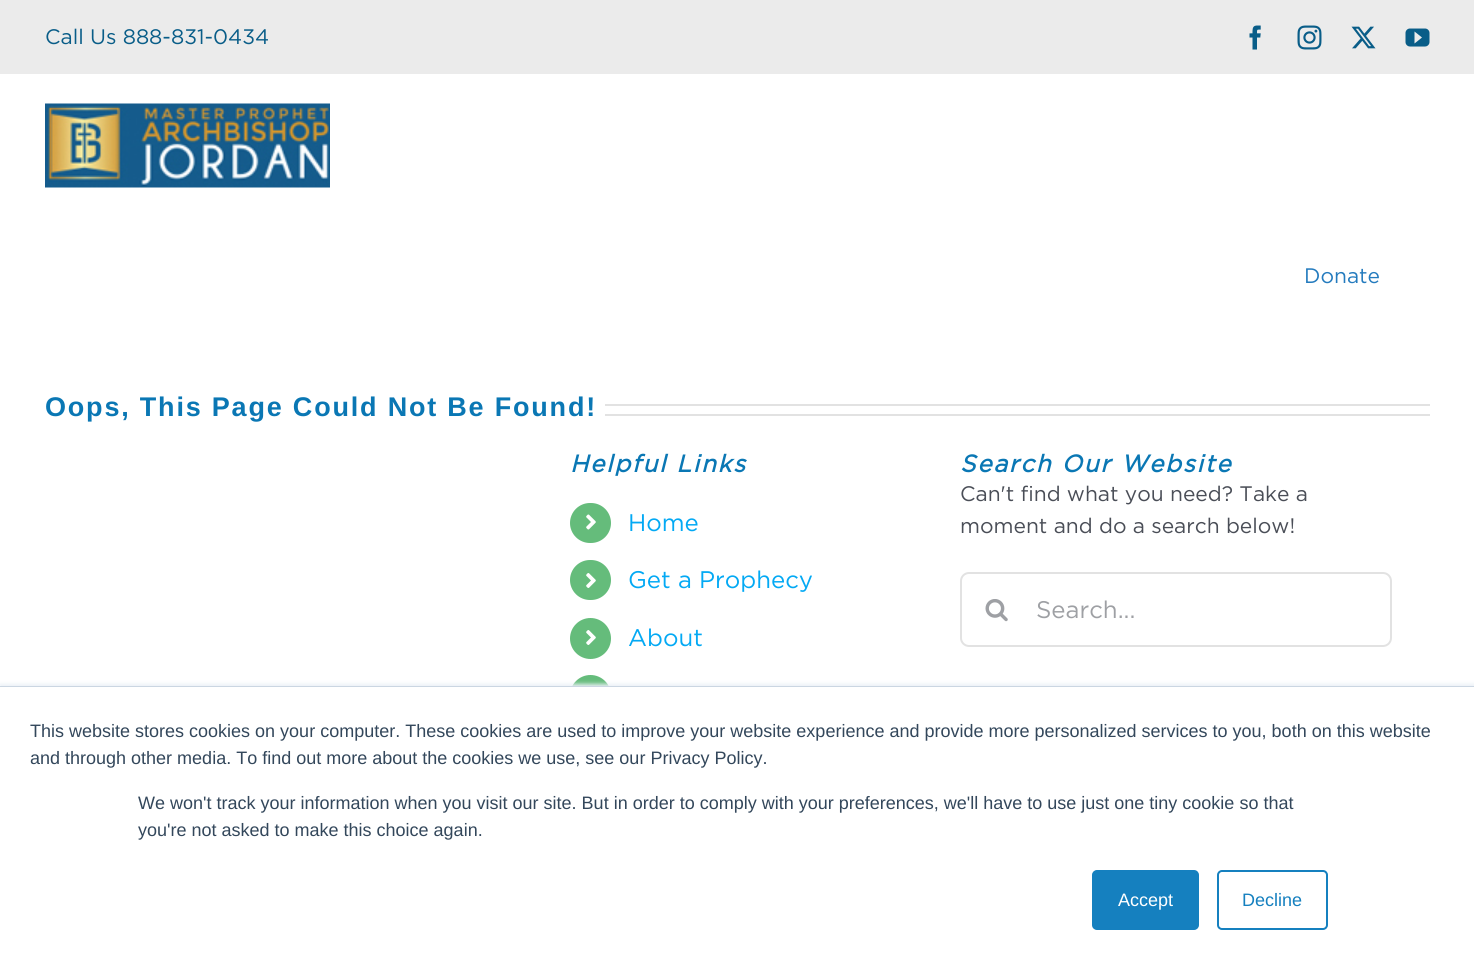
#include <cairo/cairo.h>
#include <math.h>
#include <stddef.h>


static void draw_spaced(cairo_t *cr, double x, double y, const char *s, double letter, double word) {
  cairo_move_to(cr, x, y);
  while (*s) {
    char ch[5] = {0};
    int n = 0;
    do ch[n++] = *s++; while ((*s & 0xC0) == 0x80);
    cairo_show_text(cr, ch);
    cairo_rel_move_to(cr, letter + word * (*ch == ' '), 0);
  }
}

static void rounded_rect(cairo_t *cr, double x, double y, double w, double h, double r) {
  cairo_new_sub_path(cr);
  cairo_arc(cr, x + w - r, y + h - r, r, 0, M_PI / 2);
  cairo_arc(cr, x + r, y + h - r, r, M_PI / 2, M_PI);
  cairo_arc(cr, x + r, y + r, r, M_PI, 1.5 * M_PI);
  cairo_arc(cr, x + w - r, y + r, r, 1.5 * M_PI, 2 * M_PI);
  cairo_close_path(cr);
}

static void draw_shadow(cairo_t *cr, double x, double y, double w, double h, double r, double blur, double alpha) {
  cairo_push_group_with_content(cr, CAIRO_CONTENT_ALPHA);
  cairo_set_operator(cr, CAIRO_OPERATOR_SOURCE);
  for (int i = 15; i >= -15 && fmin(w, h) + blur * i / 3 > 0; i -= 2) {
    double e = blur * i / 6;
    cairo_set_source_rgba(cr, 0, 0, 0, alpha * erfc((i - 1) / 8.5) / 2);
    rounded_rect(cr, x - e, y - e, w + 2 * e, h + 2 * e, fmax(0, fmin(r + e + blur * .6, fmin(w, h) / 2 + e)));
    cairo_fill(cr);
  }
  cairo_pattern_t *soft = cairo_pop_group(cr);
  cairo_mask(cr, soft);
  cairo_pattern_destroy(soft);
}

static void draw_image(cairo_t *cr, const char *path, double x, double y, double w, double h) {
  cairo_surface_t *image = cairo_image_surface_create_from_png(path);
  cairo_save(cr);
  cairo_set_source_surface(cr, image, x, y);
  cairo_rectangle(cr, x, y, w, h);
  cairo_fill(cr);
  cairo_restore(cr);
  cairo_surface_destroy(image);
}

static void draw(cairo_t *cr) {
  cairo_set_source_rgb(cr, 1, 1, 1);
  cairo_paint(cr);
  cairo_set_source_rgb(cr, 235 / 255.0, 235 / 255.0, 235 / 255.0);
  cairo_rectangle(cr, 0, 0, 1474, 74);
  cairo_fill(cr);
  draw_image(cr, "images/1.png", 1249, 25, 12, 25);
  draw_image(cr, "images/2.png", 1297, 25, 25, 25);
  draw_image(cr, "images/3.png", 1351, 26, 25, 23);
  draw_image(cr, "images/4.png", 1405, 28, 25, 19);
  draw_image(cr, "images/5.png", 45, 103, 285, 85);
  cairo_set_source_rgb(cr, 226 / 255.0, 226 / 255.0, 226 / 255.0);
  cairo_rectangle(cr, 605, 404, 825, 2);
  cairo_fill(cr);
  cairo_rectangle(cr, 605, 414, 825, 2);
  cairo_fill(cr);
  cairo_set_source_rgb(cr, 101 / 255.0, 188 / 255.0, 123 / 255.0);
  rounded_rect(cr, 570, 503, 41, 40, 20);
  cairo_fill(cr);
  draw_image(cr, "images/6.png", 586, 514, 10, 16);
  rounded_rect(cr, 570, 560, 41, 40, 20);
  cairo_fill(cr);
  draw_image(cr, "images/7.png", 586, 573, 10, 15);
  cairo_arc(cr, 590.5, 638.5, 20.5, 0, 2 * M_PI);
  cairo_fill(cr);
  draw_image(cr, "images/7.png", 586, 630, 10, 15);
  cairo_arc(cr, 590.5, 695.5, 20.5, 0, 2 * M_PI);
  cairo_fill(cr);
  rounded_rect(cr, 961, 573, 430, 73, 8);
  cairo_set_source_rgb(cr, 226 / 255.0, 226 / 255.0, 226 / 255.0);
  cairo_stroke(cr);
  draw_image(cr, "images/8.png", 985, 599, 23, 23);
  cairo_set_source_rgb(cr, 234 / 255.0, 240 / 255.0, 246 / 255.0);
  draw_shadow(cr, 0, 684, 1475, 284, 0, 2, 1);
  cairo_set_source_rgb(cr, 203 / 255.0, 214 / 255.0, 226 / 255.0);
  cairo_rectangle(cr, 0, 686, 1474, 1);
  cairo_fill(cr);
  cairo_set_source_rgb(cr, 1, 1, 1);
  cairo_rectangle(cr, 0, 687, 1474, 281);
  cairo_fill(cr);
  cairo_set_source_rgb(cr, 21 / 255.0, 128 / 255.0, 191 / 255.0);
  rounded_rect(cr, 1093, 871, 105, 58, 4);
  cairo_fill_preserve(cr);
  cairo_stroke(cr);
  rounded_rect(cr, 1218, 871, 109, 58, 4);
  cairo_stroke(cr);
  cairo_select_font_face(cr, "Gotham", CAIRO_FONT_SLANT_NORMAL, CAIRO_FONT_WEIGHT_NORMAL);
  cairo_set_font_size(cr, 21);
  cairo_set_source_rgb(cr, 9 / 255.0, 93 / 255.0, 136 / 255.0);
  cairo_move_to(cr, 45, 44);
  cairo_show_text(cr, "Call Us 888-831-0434");
  cairo_set_source_rgb(cr, 36 / 255.0, 123 / 255.0, 190 / 255.0);
  cairo_move_to(cr, 1304, 283);
  cairo_show_text(cr, "Donate");
  cairo_select_font_face(cr, "Liberation Sans", CAIRO_FONT_SLANT_NORMAL, CAIRO_FONT_WEIGHT_BOLD);
  cairo_set_font_size(cr, 27);
  cairo_set_source_rgb(cr, 10 / 255.0, 119 / 255.0, 180 / 255.0);
  draw_spaced(cr, 45, 416, "Oops, This Page Could Not Be Found!", 1.8, 0);
  cairo_select_font_face(cr, "Gotham", CAIRO_FONT_SLANT_ITALIC, CAIRO_FONT_WEIGHT_BOLD);
  cairo_set_font_size(cr, 24);
  draw_spaced(cr, 570, 472, "Helpful Links", 1.8, 0);
  cairo_select_font_face(cr, "Gotham", CAIRO_FONT_SLANT_NORMAL, CAIRO_FONT_WEIGHT_NORMAL);
  cairo_set_source_rgb(cr, 3 / 255.0, 169 / 255.0, 244 / 255.0);
  cairo_move_to(cr, 628, 531);
  cairo_show_text(cr, "Home");
  cairo_move_to(cr, 628, 588);
  cairo_show_text(cr, "Get a Prophecy");
  cairo_move_to(cr, 628, 646);
  cairo_show_text(cr, "About");
  cairo_select_font_face(cr, "Gotham", CAIRO_FONT_SLANT_ITALIC, CAIRO_FONT_WEIGHT_BOLD);
  cairo_set_source_rgb(cr, 10 / 255.0, 119 / 255.0, 180 / 255.0);
  draw_spaced(cr, 960, 472, "Search Our Website", 1.8, 0);
  cairo_select_font_face(cr, "Gotham", CAIRO_FONT_SLANT_NORMAL, CAIRO_FONT_WEIGHT_NORMAL);
  cairo_set_font_size(cr, 21);
  cairo_set_source_rgb(cr, 74 / 255.0, 78 / 255.0, 87 / 255.0);
  cairo_move_to(cr, 960, 501);
  cairo_show_text(cr, "Can't find what you need? Take a");
  cairo_move_to(cr, 960, 533);
  cairo_show_text(cr, "moment and do a search below!");
  cairo_set_font_size(cr, 24);
  cairo_set_source_rgb(cr, 158 / 255.0, 160 / 255.0, 164 / 255.0);
  cairo_move_to(cr, 1036, 618);
  cairo_show_text(cr, "Search...");
  cairo_select_font_face(cr, "Liberation Sans", CAIRO_FONT_SLANT_NORMAL, CAIRO_FONT_WEIGHT_NORMAL);
  cairo_set_font_size(cr, 18);
  cairo_set_source_rgb(cr, 51 / 255.0, 71 / 255.0, 91 / 255.0);
  cairo_move_to(cr, 30, 737);
  cairo_show_text(cr, "This website stores cookies on your computer. These cookies are used to improve your website experience and provide more personalized services to you, both on this website");
  cairo_move_to(cr, 30, 764);
  cairo_show_text(cr, "and through other media. To find out more about the cookies we use, see our Privacy Policy.");
  cairo_move_to(cr, 138, 809);
  cairo_show_text(cr, "We won't track your information when you visit our site. But in order to comply with your preferences, we'll have to use just one tiny cookie so that");
  cairo_move_to(cr, 138, 836);
  cairo_show_text(cr, "you're not asked to make this choice again.");
  cairo_set_source_rgb(cr, 1, 1, 1);
  cairo_move_to(cr, 1118, 906);
  cairo_show_text(cr, "Accept");
  cairo_set_source_rgb(cr, 21 / 255.0, 128 / 255.0, 191 / 255.0);
  cairo_move_to(cr, 1242, 906);
  cairo_show_text(cr, "Decline");
}

int main(void) {
  cairo_surface_t *surface = cairo_image_surface_create(CAIRO_FORMAT_RGB24, 1474, 968);
  cairo_t *cr = cairo_create(surface);
  cairo_font_options_t *options = cairo_font_options_create();
  cairo_font_options_set_hint_metrics(options, CAIRO_HINT_METRICS_OFF);
  cairo_font_options_set_hint_style(options, CAIRO_HINT_STYLE_NONE);
  cairo_set_font_options(cr, options);
  cairo_set_miter_limit(cr, 4);
  draw(cr);
  cairo_surface_write_to_png(surface, "out.png");
  cairo_font_options_destroy(options);
  cairo_destroy(cr);
  cairo_surface_destroy(surface);
  return 0;
}
